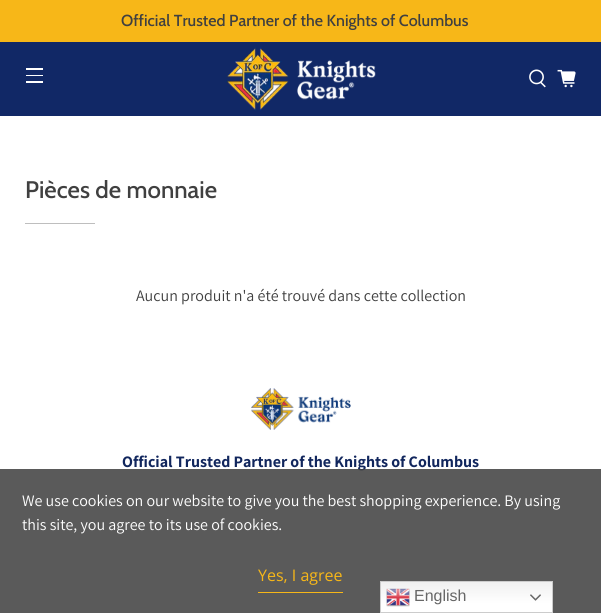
#include <cairo/cairo.h>
#include <math.h>
#include <stddef.h>


static void draw_image(cairo_t *cr, const char *path, double x, double y, double w, double h) {
  cairo_surface_t *image = cairo_image_surface_create_from_png(path);
  cairo_save(cr);
  cairo_set_source_surface(cr, image, x, y);
  cairo_rectangle(cr, x, y, w, h);
  cairo_fill(cr);
  cairo_restore(cr);
  cairo_surface_destroy(image);
}

static void draw(cairo_t *cr) {
  cairo_pattern_t *gradient;
  cairo_set_source_rgb(cr, 1, 1, 1);
  cairo_paint(cr);
  cairo_set_source_rgb(cr, 247 / 255.0, 183 / 255.0, 24 / 255.0);
  cairo_rectangle(cr, 0, 0, 601, 42);
  cairo_fill(cr);
  cairo_set_source_rgb(cr, 17 / 255.0, 40 / 255.0, 102 / 255.0);
  cairo_rectangle(cr, 0, 42, 601, 74);
  cairo_fill(cr);
  cairo_set_source_rgb(cr, 1, 1, 1);
  cairo_rectangle(cr, 26, 68, 17, 2);
  cairo_fill(cr);
  cairo_rectangle(cr, 26, 75, 17, 1);
  cairo_fill(cr);
  cairo_rectangle(cr, 26, 81, 17, 2);
  cairo_fill(cr);
  draw_image(cr, "images/1.png", 226, 47, 150, 64);
  draw_image(cr, "images/2.png", 529, 69, 17, 19);
  draw_image(cr, "images/3.png", 557, 69, 19, 19);
  cairo_set_source_rgb(cr, 190 / 255.0, 190 / 255.0, 190 / 255.0);
  cairo_rectangle(cr, 25, 223, 70, 1);
  cairo_fill(cr);
  draw_image(cr, "images/4.png", 251, 388, 100, 42);
  cairo_select_font_face(cr, "Cabin Medium", CAIRO_FONT_SLANT_NORMAL, CAIRO_FONT_WEIGHT_NORMAL);
  cairo_set_font_size(cr, 16);
  cairo_set_source_rgb(cr, 64 / 255.0, 64 / 255.0, 64 / 255.0);
  cairo_move_to(cr, 121, 26);
  cairo_show_text(cr, "Official Trusted Partner of the Knights of Columbus");
  cairo_set_font_size(cr, 24);
  cairo_move_to(cr, 25, 198);
  cairo_show_text(cr, "Pièces de monnaie");
  cairo_select_font_face(cr, "Assistant", CAIRO_FONT_SLANT_NORMAL, CAIRO_FONT_WEIGHT_NORMAL);
  cairo_set_font_size(cr, 16);
  cairo_move_to(cr, 136, 301);
  cairo_show_text(cr, "Aucun produit n'a été trouvé dans cette collection");
  cairo_select_font_face(cr, "Assistant", CAIRO_FONT_SLANT_NORMAL, CAIRO_FONT_WEIGHT_BOLD);
  cairo_set_source_rgb(cr, 17 / 255.0, 38 / 255.0, 93 / 255.0);
  cairo_move_to(cr, 122, 467);
  cairo_show_text(cr, "Official Trusted Partner of the Knights of Columbus");
  cairo_set_source_rgba(cr, 64 / 255.0, 64 / 255.0, 64 / 255.0, 0.86);
  cairo_rectangle(cr, 0, 469, 601, 144);
  cairo_fill(cr);
  cairo_select_font_face(cr, "Assistant", CAIRO_FONT_SLANT_NORMAL, CAIRO_FONT_WEIGHT_NORMAL);
  cairo_set_source_rgb(cr, 1, 1, 1);
  cairo_move_to(cr, 22, 506);
  cairo_show_text(cr, "We use cookies on our website to give you the best shopping experience. By using");
  cairo_move_to(cr, 22, 530);
  cairo_show_text(cr, "this site, you agree to its use of cookies.");
  cairo_set_source_rgb(cr, 247 / 255.0, 183 / 255.0, 24 / 255.0);
  cairo_rectangle(cr, 258, 592, 85, 1);
  cairo_fill(cr);
  cairo_select_font_face(cr, "Open Sans", CAIRO_FONT_SLANT_NORMAL, CAIRO_FONT_WEIGHT_NORMAL);
  cairo_move_to(cr, 258, 581);
  cairo_show_text(cr, "Yes, I agree");
  gradient = cairo_pattern_create_linear(467, 581, 467, 613);
  cairo_pattern_add_color_stop_rgba(gradient, 0, 239 / 255.0, 239 / 255.0, 239 / 255.0, 1);
  cairo_pattern_add_color_stop_rgba(gradient, 0.7, 1, 1, 1, 1);
  cairo_set_source(cr, gradient);
  cairo_pattern_destroy(gradient);
  cairo_rectangle(cr, 381, 582, 171, 30);
  cairo_fill(cr);
  cairo_rectangle(cr, 380.5, 581.5, 172, 31);
  cairo_set_source_rgb(cr, 204 / 255.0, 204 / 255.0, 204 / 255.0);
  cairo_set_line_width(cr, 1);
  cairo_stroke(cr);
  draw_image(cr, "images/5.png", 386, 588, 24, 19);
  cairo_select_font_face(cr, "Liberation Sans", CAIRO_FONT_SLANT_NORMAL, CAIRO_FONT_WEIGHT_NORMAL);
  cairo_set_source_rgb(cr, 102 / 255.0, 102 / 255.0, 102 / 255.0);
  cairo_move_to(cr, 414, 601);
  cairo_show_text(cr, "English");
  draw_image(cr, "images/6.png", 530, 594, 11, 7);
}

int main(void) {
  cairo_surface_t *surface = cairo_image_surface_create(CAIRO_FORMAT_RGB24, 601, 613);
  cairo_t *cr = cairo_create(surface);
  cairo_font_options_t *options = cairo_font_options_create();
  cairo_font_options_set_hint_metrics(options, CAIRO_HINT_METRICS_OFF);
  cairo_font_options_set_hint_style(options, CAIRO_HINT_STYLE_NONE);
  cairo_set_font_options(cr, options);
  cairo_set_miter_limit(cr, 4);
  draw(cr);
  cairo_surface_write_to_png(surface, "out.png");
  cairo_font_options_destroy(options);
  cairo_destroy(cr);
  cairo_surface_destroy(surface);
  return 0;
}
